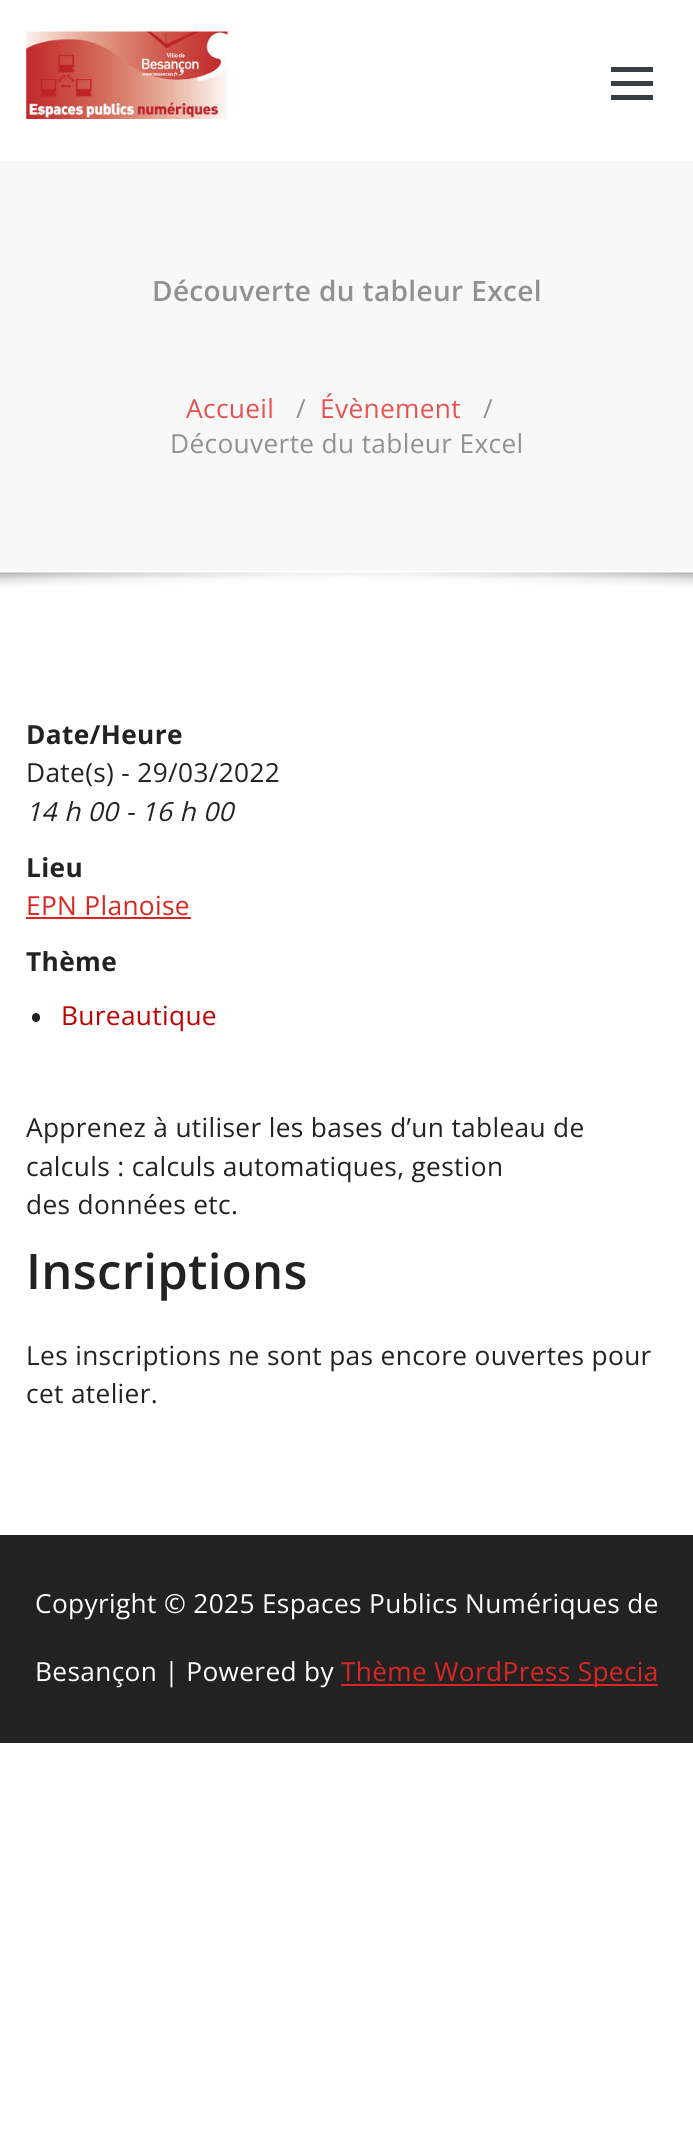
#include <cairo/cairo.h>
#include <math.h>
#include <stddef.h>


static void draw_spaced(cairo_t *cr, double x, double y, const char *s, double letter, double word) {
  cairo_move_to(cr, x, y);
  while (*s) {
    char ch[5] = {0};
    int n = 0;
    do ch[n++] = *s++; while ((*s & 0xC0) == 0x80);
    cairo_show_text(cr, ch);
    cairo_rel_move_to(cr, letter + word * (*ch == ' '), 0);
  }
}

static void rounded_rect(cairo_t *cr, double x, double y, double w, double h, double r) {
  cairo_new_sub_path(cr);
  cairo_arc(cr, x + w - r, y + h - r, r, 0, M_PI / 2);
  cairo_arc(cr, x + r, y + h - r, r, M_PI / 2, M_PI);
  cairo_arc(cr, x + r, y + r, r, M_PI, 1.5 * M_PI);
  cairo_arc(cr, x + w - r, y + r, r, 1.5 * M_PI, 2 * M_PI);
  cairo_close_path(cr);
}

static void draw_image(cairo_t *cr, const char *path, double x, double y, double w, double h) {
  cairo_surface_t *image = cairo_image_surface_create_from_png(path);
  cairo_save(cr);
  cairo_set_source_surface(cr, image, x, y);
  cairo_rectangle(cr, x, y, w, h);
  cairo_fill(cr);
  cairo_restore(cr);
  cairo_surface_destroy(image);
}

static void draw(cairo_t *cr) {
  cairo_set_source_rgb(cr, 1, 1, 1);
  cairo_paint(cr);
  draw_image(cr, "images/1.png", 26, 31, 202, 88);
  cairo_set_source_rgb(cr, 56 / 255.0, 62 / 255.0, 65 / 255.0);
  cairo_rectangle(cr, 611, 67, 42, 5);
  cairo_fill(cr);
  cairo_rectangle(cr, 611, 81, 42, 5);
  cairo_fill(cr);
  cairo_rectangle(cr, 611, 95, 42, 5);
  cairo_fill(cr);
  cairo_set_source_rgb(cr, 248 / 255.0, 248 / 255.0, 248 / 255.0);
  cairo_rectangle(cr, 0, 161, 693, 410);
  cairo_fill(cr);
  draw_image(cr, "images/2.png", 0, 572, 693, 15);
  cairo_set_source_rgb(cr, 219 / 255.0, 39 / 255.0, 35 / 255.0);
  cairo_rectangle(cr, 26, 917, 165, 2);
  cairo_fill(cr);
  cairo_set_source_rgb(cr, 34 / 255.0, 34 / 255.0, 34 / 255.0);
  rounded_rect(cr, 32, 1013, 8, 9, 4);
  cairo_fill(cr);
  cairo_rectangle(cr, 0, 1535, 693, 208);
  cairo_fill(cr);
  cairo_set_source_rgb(cr, 219 / 255.0, 39 / 255.0, 35 / 255.0);
  cairo_rectangle(cr, 341, 1684, 317, 2);
  cairo_fill(cr);
  cairo_select_font_face(cr, "Open Sans SemiBold", CAIRO_FONT_SLANT_NORMAL, CAIRO_FONT_WEIGHT_NORMAL);
  cairo_set_font_size(cr, 28);
  cairo_set_source_rgb(cr, 145 / 255.0, 145 / 255.0, 145 / 255.0);
  draw_spaced(cr, 152, 301, "Découverte du tableur Excel", 0.35, 0);
  cairo_select_font_face(cr, "Open Sans", CAIRO_FONT_SLANT_NORMAL, CAIRO_FONT_WEIGHT_NORMAL);
  cairo_set_font_size(cr, 26.25);
  cairo_set_source_rgb(cr, 227 / 255.0, 84 / 255.0, 81 / 255.0);
  draw_spaced(cr, 186, 418, "Accueil", 0.35, 0);
  cairo_set_source_rgb(cr, 145 / 255.0, 145 / 255.0, 145 / 255.0);
  draw_spaced(cr, 296, 418, "/", 0.35, 0);
  cairo_set_source_rgb(cr, 227 / 255.0, 84 / 255.0, 81 / 255.0);
  draw_spaced(cr, 320, 418, "Évènement", 0.35, 0);
  cairo_set_source_rgb(cr, 145 / 255.0, 145 / 255.0, 145 / 255.0);
  draw_spaced(cr, 483, 418, "/", 0.35, 0);
  draw_spaced(cr, 170, 453, "Découverte du tableur Excel", 0.35, 0);
  cairo_select_font_face(cr, "Open Sans", CAIRO_FONT_SLANT_NORMAL, CAIRO_FONT_WEIGHT_BOLD);
  cairo_set_source_rgb(cr, 34 / 255.0, 34 / 255.0, 34 / 255.0);
  draw_spaced(cr, 26, 744, "Date/Heure", 0.35, 0);
  cairo_select_font_face(cr, "Open Sans", CAIRO_FONT_SLANT_NORMAL, CAIRO_FONT_WEIGHT_NORMAL);
  draw_spaced(cr, 26, 782, "Date(s) - 29/03/2022", 0.35, 0);
  cairo_select_font_face(cr, "Open Sans", CAIRO_FONT_SLANT_ITALIC, CAIRO_FONT_WEIGHT_NORMAL);
  draw_spaced(cr, 26, 821, "14 h 00 - 16 h 00", 0.35, 0);
  cairo_select_font_face(cr, "Open Sans", CAIRO_FONT_SLANT_NORMAL, CAIRO_FONT_WEIGHT_BOLD);
  draw_spaced(cr, 26, 877, "Lieu", 0.35, 0);
  cairo_select_font_face(cr, "Open Sans", CAIRO_FONT_SLANT_NORMAL, CAIRO_FONT_WEIGHT_NORMAL);
  cairo_set_source_rgb(cr, 219 / 255.0, 39 / 255.0, 35 / 255.0);
  draw_spaced(cr, 26, 915, "EPN Planoise", 0.35, 0);
  cairo_select_font_face(cr, "Open Sans", CAIRO_FONT_SLANT_NORMAL, CAIRO_FONT_WEIGHT_BOLD);
  cairo_set_source_rgb(cr, 34 / 255.0, 34 / 255.0, 34 / 255.0);
  draw_spaced(cr, 26, 971, "Thème", 0.35, 0);
  cairo_select_font_face(cr, "Open Sans", CAIRO_FONT_SLANT_NORMAL, CAIRO_FONT_WEIGHT_NORMAL);
  cairo_set_source_rgb(cr, 191 / 255.0, 0, 0);
  draw_spaced(cr, 61, 1025, "Bureautique", 0.35, 0);
  cairo_set_source_rgb(cr, 34 / 255.0, 34 / 255.0, 34 / 255.0);
  draw_spaced(cr, 26, 1137, "Apprenez à utiliser les bases d’un tableau de", 0.35, 0);
  draw_spaced(cr, 26, 1176, "calculs : calculs automatiques, gestion", 0.35, 0);
  draw_spaced(cr, 26, 1214, "des données etc.", 0.35, 0);
  cairo_select_font_face(cr, "Open Sans SemiBold", CAIRO_FONT_SLANT_NORMAL, CAIRO_FONT_WEIGHT_NORMAL);
  cairo_set_font_size(cr, 49);
  draw_spaced(cr, 26, 1289, "Inscriptions", 0.35, 0);
  cairo_select_font_face(cr, "Open Sans", CAIRO_FONT_SLANT_NORMAL, CAIRO_FONT_WEIGHT_NORMAL);
  cairo_set_font_size(cr, 26.25);
  draw_spaced(cr, 26, 1365, "Les inscriptions ne sont pas encore ouvertes pour", 0.35, 0);
  draw_spaced(cr, 26, 1403, "cet atelier.", 0.35, 0);
  cairo_set_source_rgb(cr, 1, 1, 1);
  draw_spaced(cr, 35, 1613, "Copyright © 2025 Espaces Publics Numériques de", 0.35, 0);
  draw_spaced(cr, 35, 1681, "Besançon | Powered by", 0.35, 0);
  cairo_set_source_rgb(cr, 219 / 255.0, 39 / 255.0, 35 / 255.0);
  draw_spaced(cr, 341, 1681, "Thème WordPress Specia", 0.35, 0);
}

int main(void) {
  cairo_surface_t *surface = cairo_image_surface_create(CAIRO_FORMAT_RGB24, 693, 2155);
  cairo_t *cr = cairo_create(surface);
  cairo_font_options_t *options = cairo_font_options_create();
  cairo_font_options_set_hint_metrics(options, CAIRO_HINT_METRICS_OFF);
  cairo_font_options_set_hint_style(options, CAIRO_HINT_STYLE_NONE);
  cairo_set_font_options(cr, options);
  cairo_set_miter_limit(cr, 4);
  draw(cr);
  cairo_surface_write_to_png(surface, "out.png");
  cairo_font_options_destroy(options);
  cairo_destroy(cr);
  cairo_surface_destroy(surface);
  return 0;
}
